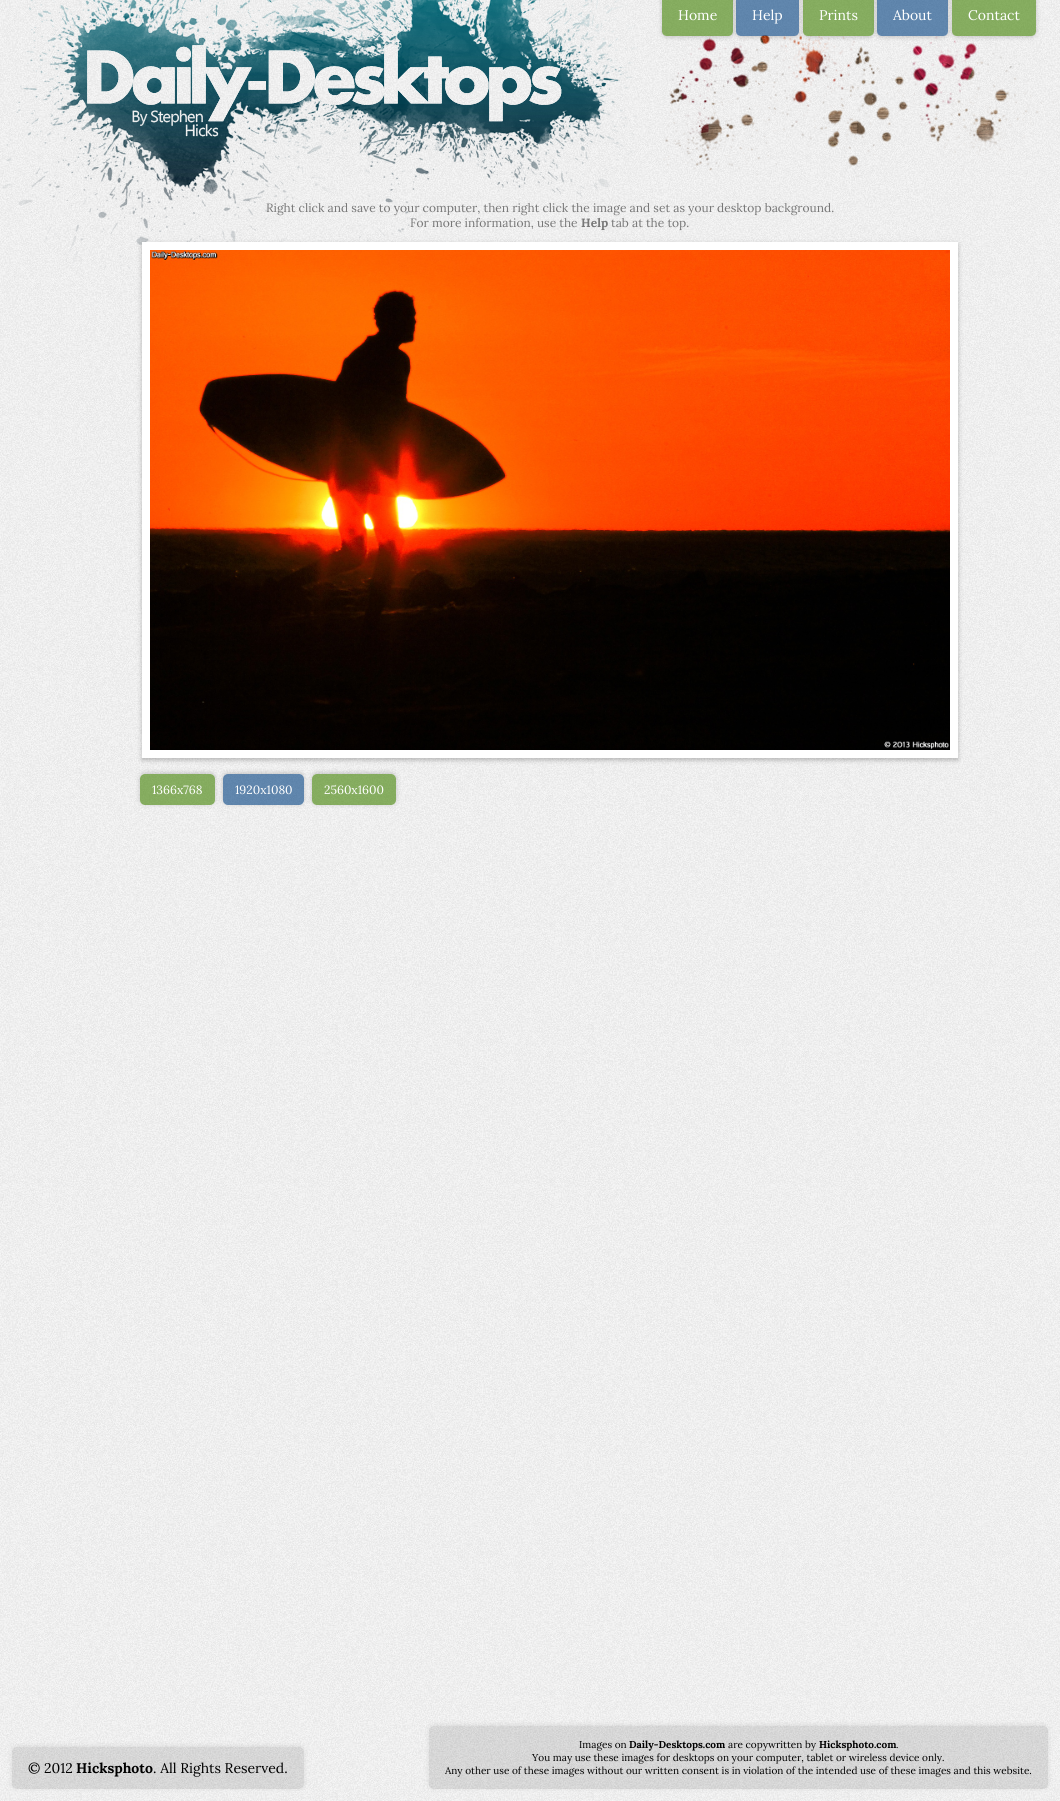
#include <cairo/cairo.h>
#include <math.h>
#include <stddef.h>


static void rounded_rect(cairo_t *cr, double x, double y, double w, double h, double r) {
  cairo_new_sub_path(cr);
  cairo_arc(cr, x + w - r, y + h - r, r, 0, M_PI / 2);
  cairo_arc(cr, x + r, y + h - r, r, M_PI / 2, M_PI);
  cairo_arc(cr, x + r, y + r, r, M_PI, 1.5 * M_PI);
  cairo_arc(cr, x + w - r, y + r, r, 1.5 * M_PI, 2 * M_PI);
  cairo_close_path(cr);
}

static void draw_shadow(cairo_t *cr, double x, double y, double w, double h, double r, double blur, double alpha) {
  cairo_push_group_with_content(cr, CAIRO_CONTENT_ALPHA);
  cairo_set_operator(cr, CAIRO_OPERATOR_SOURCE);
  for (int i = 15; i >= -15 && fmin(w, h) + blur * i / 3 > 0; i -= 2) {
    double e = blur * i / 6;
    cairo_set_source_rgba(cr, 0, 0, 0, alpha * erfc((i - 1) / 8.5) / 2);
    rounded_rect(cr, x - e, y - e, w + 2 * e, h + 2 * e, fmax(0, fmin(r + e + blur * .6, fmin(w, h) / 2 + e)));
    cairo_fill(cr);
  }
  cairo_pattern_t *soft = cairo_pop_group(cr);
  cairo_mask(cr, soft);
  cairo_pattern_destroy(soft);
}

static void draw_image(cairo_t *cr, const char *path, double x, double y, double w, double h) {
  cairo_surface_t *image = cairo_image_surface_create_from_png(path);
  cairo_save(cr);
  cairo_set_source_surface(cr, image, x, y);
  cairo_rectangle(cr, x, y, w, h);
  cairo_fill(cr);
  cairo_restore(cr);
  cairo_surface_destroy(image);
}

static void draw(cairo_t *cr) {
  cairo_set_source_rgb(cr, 1, 1, 1);
  cairo_paint(cr);
  draw_image(cr, "images/1.png", 0, 0, 1060, 1801);
  draw_image(cr, "images/2.png", 2, 0, 636, 280);
  draw_image(cr, "images/3.png", 663, 35, 391, 148);
  cairo_save(cr);
  cairo_set_fill_rule(cr, CAIRO_FILL_RULE_EVEN_ODD);
  cairo_new_path(cr);
  cairo_move_to(cr, 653, 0);
  cairo_line_to(cr, 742, 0);
  cairo_line_to(cr, 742, 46);
  cairo_line_to(cr, 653, 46);
  cairo_close_path(cr);
  cairo_move_to(cr, 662, -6);
  cairo_line_to(cr, 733, -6);
  cairo_line_to(cr, 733, 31);
  cairo_curve_to(cr, 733, 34, 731, 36, 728, 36);
  cairo_line_to(cr, 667, 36);
  cairo_curve_to(cr, 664, 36, 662, 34, 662, 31);
  cairo_close_path(cr);
  cairo_clip(cr);
  cairo_set_source_rgb(cr, 0, 0, 0);
  draw_shadow(cr, 662, -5, 71, 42, 5, 2.5, 0.2);
  cairo_restore(cr);
  cairo_set_source_rgba(cr, 64 / 255.0, 128 / 255.0, 0, 0.6);
  cairo_new_path(cr);
  cairo_move_to(cr, 662, -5);
  cairo_line_to(cr, 733, -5);
  cairo_line_to(cr, 733, 31);
  cairo_curve_to(cr, 733, 34, 731, 36, 728, 36);
  cairo_line_to(cr, 667, 36);
  cairo_curve_to(cr, 664, 36, 662, 34, 662, 31);
  cairo_close_path(cr);
  cairo_fill(cr);
  cairo_save(cr);
  cairo_set_fill_rule(cr, CAIRO_FILL_RULE_EVEN_ODD);
  cairo_new_path(cr);
  cairo_move_to(cr, 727, 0);
  cairo_line_to(cr, 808, 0);
  cairo_line_to(cr, 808, 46);
  cairo_line_to(cr, 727, 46);
  cairo_close_path(cr);
  cairo_move_to(cr, 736, -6);
  cairo_line_to(cr, 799, -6);
  cairo_line_to(cr, 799, 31);
  cairo_curve_to(cr, 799, 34, 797, 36, 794, 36);
  cairo_line_to(cr, 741, 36);
  cairo_curve_to(cr, 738, 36, 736, 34, 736, 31);
  cairo_close_path(cr);
  cairo_clip(cr);
  cairo_set_source_rgb(cr, 0, 0, 0);
  draw_shadow(cr, 736, -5, 63, 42, 5, 2.5, 0.2);
  cairo_restore(cr);
  cairo_set_source_rgba(cr, 0, 64 / 255.0, 128 / 255.0, 0.6);
  cairo_new_path(cr);
  cairo_move_to(cr, 736, -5);
  cairo_line_to(cr, 799, -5);
  cairo_line_to(cr, 799, 31);
  cairo_curve_to(cr, 799, 34, 797, 36, 794, 36);
  cairo_line_to(cr, 741, 36);
  cairo_curve_to(cr, 738, 36, 736, 34, 736, 31);
  cairo_close_path(cr);
  cairo_fill(cr);
  cairo_save(cr);
  cairo_set_fill_rule(cr, CAIRO_FILL_RULE_EVEN_ODD);
  cairo_new_path(cr);
  cairo_move_to(cr, 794, 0);
  cairo_line_to(cr, 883, 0);
  cairo_line_to(cr, 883, 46);
  cairo_line_to(cr, 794, 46);
  cairo_close_path(cr);
  cairo_move_to(cr, 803, -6);
  cairo_line_to(cr, 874, -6);
  cairo_line_to(cr, 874, 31);
  cairo_curve_to(cr, 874, 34, 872, 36, 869, 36);
  cairo_line_to(cr, 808, 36);
  cairo_curve_to(cr, 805, 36, 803, 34, 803, 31);
  cairo_close_path(cr);
  cairo_clip(cr);
  cairo_set_source_rgb(cr, 0, 0, 0);
  draw_shadow(cr, 803, -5, 71, 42, 5, 2.5, 0.2);
  cairo_restore(cr);
  cairo_set_source_rgba(cr, 64 / 255.0, 128 / 255.0, 0, 0.6);
  cairo_new_path(cr);
  cairo_move_to(cr, 803, -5);
  cairo_line_to(cr, 874, -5);
  cairo_line_to(cr, 874, 31);
  cairo_curve_to(cr, 874, 34, 872, 36, 869, 36);
  cairo_line_to(cr, 808, 36);
  cairo_curve_to(cr, 805, 36, 803, 34, 803, 31);
  cairo_close_path(cr);
  cairo_fill(cr);
  cairo_save(cr);
  cairo_set_fill_rule(cr, CAIRO_FILL_RULE_EVEN_ODD);
  cairo_new_path(cr);
  cairo_move_to(cr, 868, 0);
  cairo_line_to(cr, 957, 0);
  cairo_line_to(cr, 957, 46);
  cairo_line_to(cr, 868, 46);
  cairo_close_path(cr);
  cairo_move_to(cr, 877, -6);
  cairo_line_to(cr, 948, -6);
  cairo_line_to(cr, 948, 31);
  cairo_curve_to(cr, 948, 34, 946, 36, 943, 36);
  cairo_line_to(cr, 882, 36);
  cairo_curve_to(cr, 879, 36, 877, 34, 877, 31);
  cairo_close_path(cr);
  cairo_clip(cr);
  cairo_set_source_rgb(cr, 0, 0, 0);
  draw_shadow(cr, 877, -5, 71, 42, 5, 2.5, 0.2);
  cairo_restore(cr);
  cairo_set_source_rgba(cr, 0, 64 / 255.0, 128 / 255.0, 0.6);
  cairo_new_path(cr);
  cairo_move_to(cr, 877, -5);
  cairo_line_to(cr, 948, -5);
  cairo_line_to(cr, 948, 31);
  cairo_curve_to(cr, 948, 34, 946, 36, 943, 36);
  cairo_line_to(cr, 882, 36);
  cairo_curve_to(cr, 879, 36, 877, 34, 877, 31);
  cairo_close_path(cr);
  cairo_fill(cr);
  cairo_save(cr);
  cairo_set_fill_rule(cr, CAIRO_FILL_RULE_EVEN_ODD);
  cairo_new_path(cr);
  cairo_move_to(cr, 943, 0);
  cairo_line_to(cr, 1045, 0);
  cairo_line_to(cr, 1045, 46);
  cairo_line_to(cr, 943, 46);
  cairo_close_path(cr);
  cairo_move_to(cr, 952, -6);
  cairo_line_to(cr, 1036, -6);
  cairo_line_to(cr, 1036, 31);
  cairo_curve_to(cr, 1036, 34, 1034, 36, 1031, 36);
  cairo_line_to(cr, 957, 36);
  cairo_curve_to(cr, 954, 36, 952, 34, 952, 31);
  cairo_close_path(cr);
  cairo_clip(cr);
  cairo_set_source_rgb(cr, 0, 0, 0);
  draw_shadow(cr, 952, -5, 84, 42, 5, 2.5, 0.2);
  cairo_restore(cr);
  cairo_set_source_rgba(cr, 64 / 255.0, 128 / 255.0, 0, 0.6);
  cairo_new_path(cr);
  cairo_move_to(cr, 952, -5);
  cairo_line_to(cr, 1036, -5);
  cairo_line_to(cr, 1036, 31);
  cairo_curve_to(cr, 1036, 34, 1034, 36, 1031, 36);
  cairo_line_to(cr, 957, 36);
  cairo_curve_to(cr, 954, 36, 952, 34, 952, 31);
  cairo_close_path(cr);
  cairo_fill(cr);
  cairo_set_source_rgb(cr, 0, 0, 0);
  draw_shadow(cr, 142, 244, 816, 516, 0, 2.5, 0.25);
  cairo_rectangle(cr, 146, 246, 808, 508);
  cairo_set_source_rgb(cr, 1, 1, 1);
  cairo_set_line_width(cr, 8);
  cairo_stroke(cr);
  draw_image(cr, "images/4.png", 150, 250, 800, 500);
  cairo_save(cr);
  cairo_set_fill_rule(cr, CAIRO_FILL_RULE_EVEN_ODD);
  cairo_new_path(cr);
  cairo_move_to(cr, 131, 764);
  cairo_line_to(cr, 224, 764);
  cairo_line_to(cr, 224, 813);
  cairo_line_to(cr, 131, 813);
  cairo_close_path(cr);
  cairo_move_to(cr, 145, 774);
  cairo_line_to(cr, 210, 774);
  cairo_curve_to(cr, 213, 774, 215, 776, 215, 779);
  cairo_line_to(cr, 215, 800);
  cairo_curve_to(cr, 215, 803, 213, 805, 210, 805);
  cairo_line_to(cr, 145, 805);
  cairo_curve_to(cr, 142, 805, 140, 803, 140, 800);
  cairo_line_to(cr, 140, 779);
  cairo_curve_to(cr, 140, 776, 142, 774, 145, 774);
  cairo_close_path(cr);
  cairo_clip(cr);
  cairo_set_source_rgb(cr, 0, 0, 0);
  draw_shadow(cr, 140, 773, 75, 31, 5, 2.5, 0.2);
  cairo_restore(cr);
  cairo_set_source_rgba(cr, 64 / 255.0, 128 / 255.0, 0, 0.6);
  rounded_rect(cr, 140, 774, 75, 31, 5);
  cairo_fill(cr);
  cairo_save(cr);
  cairo_set_fill_rule(cr, CAIRO_FILL_RULE_EVEN_ODD);
  cairo_new_path(cr);
  cairo_move_to(cr, 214, 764);
  cairo_line_to(cr, 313, 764);
  cairo_line_to(cr, 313, 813);
  cairo_line_to(cr, 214, 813);
  cairo_close_path(cr);
  cairo_move_to(cr, 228, 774);
  cairo_line_to(cr, 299, 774);
  cairo_curve_to(cr, 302, 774, 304, 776, 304, 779);
  cairo_line_to(cr, 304, 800);
  cairo_curve_to(cr, 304, 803, 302, 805, 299, 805);
  cairo_line_to(cr, 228, 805);
  cairo_curve_to(cr, 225, 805, 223, 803, 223, 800);
  cairo_line_to(cr, 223, 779);
  cairo_curve_to(cr, 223, 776, 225, 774, 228, 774);
  cairo_close_path(cr);
  cairo_clip(cr);
  cairo_set_source_rgb(cr, 0, 0, 0);
  draw_shadow(cr, 223, 773, 81, 31, 5, 2.5, 0.2);
  cairo_restore(cr);
  cairo_set_source_rgba(cr, 0, 64 / 255.0, 128 / 255.0, 0.6);
  rounded_rect(cr, 223, 774, 81, 31, 5);
  cairo_fill(cr);
  cairo_save(cr);
  cairo_set_fill_rule(cr, CAIRO_FILL_RULE_EVEN_ODD);
  cairo_new_path(cr);
  cairo_move_to(cr, 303, 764);
  cairo_line_to(cr, 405, 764);
  cairo_line_to(cr, 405, 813);
  cairo_line_to(cr, 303, 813);
  cairo_close_path(cr);
  cairo_move_to(cr, 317, 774);
  cairo_line_to(cr, 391, 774);
  cairo_curve_to(cr, 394, 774, 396, 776, 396, 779);
  cairo_line_to(cr, 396, 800);
  cairo_curve_to(cr, 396, 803, 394, 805, 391, 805);
  cairo_line_to(cr, 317, 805);
  cairo_curve_to(cr, 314, 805, 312, 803, 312, 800);
  cairo_line_to(cr, 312, 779);
  cairo_curve_to(cr, 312, 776, 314, 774, 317, 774);
  cairo_close_path(cr);
  cairo_clip(cr);
  cairo_set_source_rgb(cr, 0, 0, 0);
  draw_shadow(cr, 312, 773, 84, 31, 5, 2.5, 0.2);
  cairo_restore(cr);
  cairo_set_source_rgba(cr, 64 / 255.0, 128 / 255.0, 0, 0.6);
  rounded_rect(cr, 312, 774, 84, 31, 5);
  cairo_fill(cr);
  cairo_set_source_rgb(cr, 0, 0, 0);
  draw_shadow(cr, 12, 1746, 292, 42, 5, 2.5, 0.1);
  draw_image(cr, "images/5.png", 12, 1747, 292, 42);
  draw_shadow(cr, 429, 1725, 619, 63, 5, 2.5, 0.1);
  draw_image(cr, "images/6.png", 429, 1726, 619, 63);
  cairo_select_font_face(cr, "Lora", CAIRO_FONT_SLANT_NORMAL, CAIRO_FONT_WEIGHT_NORMAL);
  cairo_set_font_size(cr, 14);
  cairo_set_source_rgb(cr, 1, 1, 1);
  cairo_move_to(cr, 678, 20);
  cairo_show_text(cr, "Home");
  cairo_move_to(cr, 752, 20);
  cairo_show_text(cr, "Help");
  cairo_move_to(cr, 819, 20);
  cairo_show_text(cr, "Prints");
  cairo_move_to(cr, 893, 20);
  cairo_show_text(cr, "About");
  cairo_move_to(cr, 968, 20);
  cairo_show_text(cr, "Contact");
  cairo_set_font_size(cr, 12);
  cairo_set_source_rgb(cr, 119 / 255.0, 119 / 255.0, 119 / 255.0);
  cairo_move_to(cr, 266, 212);
  cairo_show_text(cr, "Right click and save to your computer, then right click the image and set as your desktop background.");
  cairo_move_to(cr, 410, 227);
  cairo_show_text(cr, "For more information, use the");
  cairo_select_font_face(cr, "Lora", CAIRO_FONT_SLANT_NORMAL, CAIRO_FONT_WEIGHT_BOLD);
  cairo_move_to(cr, 581, 227);
  cairo_show_text(cr, "Help");
  cairo_select_font_face(cr, "Lora", CAIRO_FONT_SLANT_NORMAL, CAIRO_FONT_WEIGHT_NORMAL);
  cairo_move_to(cr, 611, 227);
  cairo_show_text(cr, "tab at the top.");
  cairo_set_source_rgb(cr, 1, 1, 1);
  cairo_move_to(cr, 152, 794);
  cairo_show_text(cr, "1366x768");
  cairo_move_to(cr, 235, 794);
  cairo_show_text(cr, "1920x1080");
  cairo_move_to(cr, 324, 794);
  cairo_show_text(cr, "2560x1600");
  cairo_set_font_size(cr, 14);
  cairo_set_source_rgb(cr, 0, 0, 0);
  cairo_move_to(cr, 28, 1773);
  cairo_show_text(cr, "© 2012");
  cairo_select_font_face(cr, "Lora", CAIRO_FONT_SLANT_NORMAL, CAIRO_FONT_WEIGHT_BOLD);
  cairo_move_to(cr, 76, 1773);
  cairo_show_text(cr, "Hicksphoto");
  cairo_select_font_face(cr, "Lora", CAIRO_FONT_SLANT_NORMAL, CAIRO_FONT_WEIGHT_NORMAL);
  cairo_move_to(cr, 153, 1773);
  cairo_show_text(cr, ". All Rights Reserved.");
  cairo_set_font_size(cr, 10);
  cairo_move_to(cr, 579, 1748);
  cairo_show_text(cr, "Images on");
  cairo_select_font_face(cr, "Lora", CAIRO_FONT_SLANT_NORMAL, CAIRO_FONT_WEIGHT_BOLD);
  cairo_move_to(cr, 629, 1748);
  cairo_show_text(cr, "Daily-Desktops.com");
  cairo_select_font_face(cr, "Lora", CAIRO_FONT_SLANT_NORMAL, CAIRO_FONT_WEIGHT_NORMAL);
  cairo_move_to(cr, 728, 1748);
  cairo_show_text(cr, "are copywritten by");
  cairo_select_font_face(cr, "Lora", CAIRO_FONT_SLANT_NORMAL, CAIRO_FONT_WEIGHT_BOLD);
  cairo_move_to(cr, 819, 1748);
  cairo_show_text(cr, "Hicksphoto.com");
  cairo_select_font_face(cr, "Lora", CAIRO_FONT_SLANT_NORMAL, CAIRO_FONT_WEIGHT_NORMAL);
  cairo_move_to(cr, 896, 1748);
  cairo_show_text(cr, ".");
  cairo_move_to(cr, 532, 1761);
  cairo_show_text(cr, "You may use these images for desktops on your computer, tablet or wireless device only.");
  cairo_move_to(cr, 445, 1774);
  cairo_show_text(cr, "Any other use of these images without our written consent is in violation of the intended use of these images and this website.");
}

int main(void) {
  cairo_surface_t *surface = cairo_image_surface_create(CAIRO_FORMAT_RGB24, 1060, 1801);
  cairo_t *cr = cairo_create(surface);
  cairo_font_options_t *options = cairo_font_options_create();
  cairo_font_options_set_hint_metrics(options, CAIRO_HINT_METRICS_OFF);
  cairo_font_options_set_hint_style(options, CAIRO_HINT_STYLE_NONE);
  cairo_set_font_options(cr, options);
  cairo_set_miter_limit(cr, 4);
  draw(cr);
  cairo_surface_write_to_png(surface, "out.png");
  cairo_font_options_destroy(options);
  cairo_destroy(cr);
  cairo_surface_destroy(surface);
  return 0;
}
